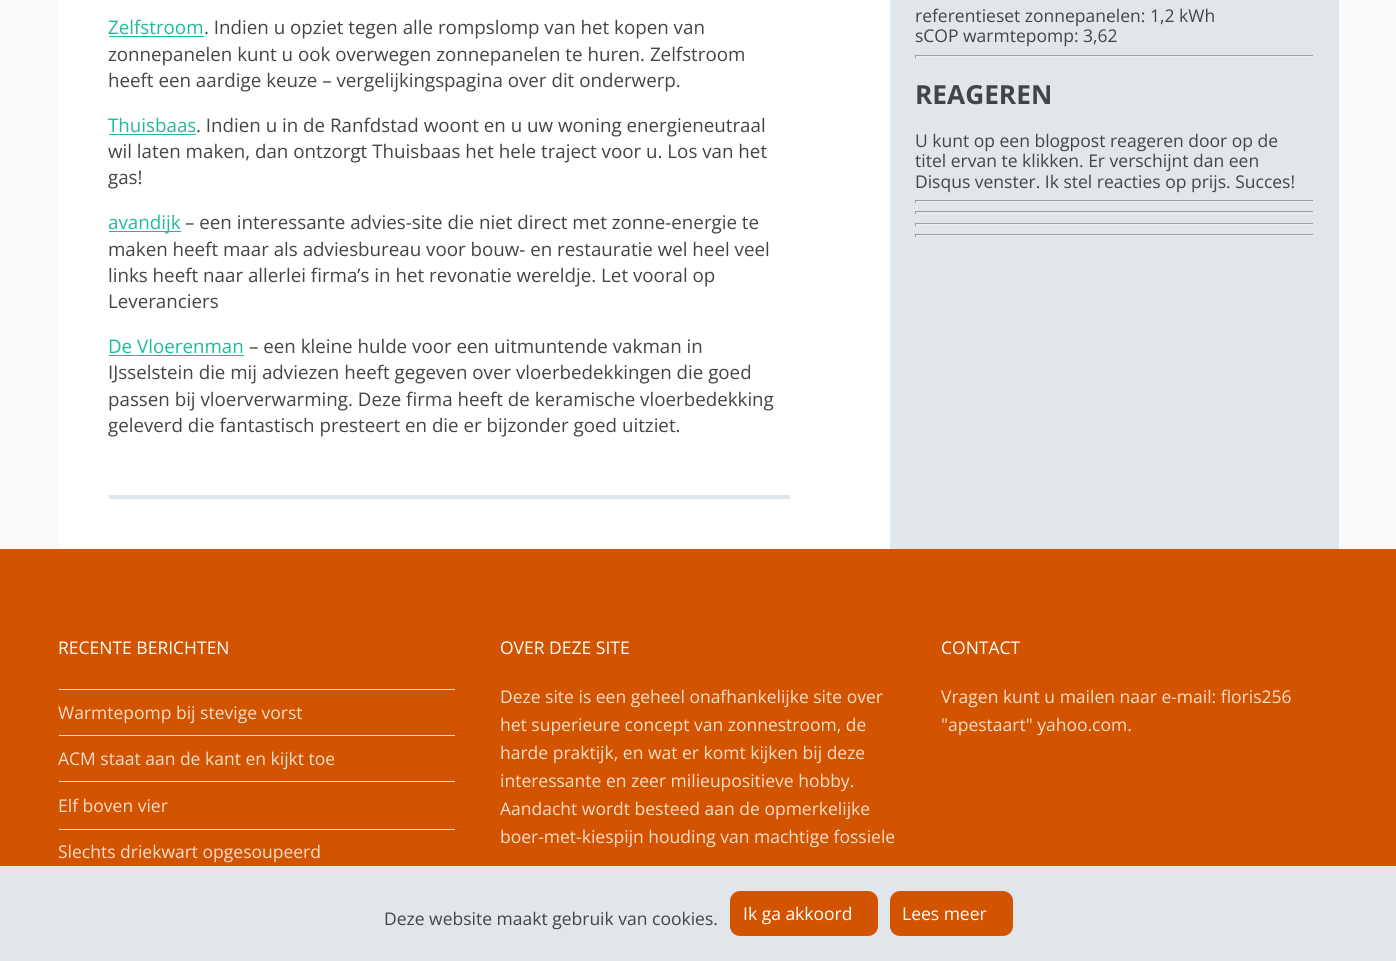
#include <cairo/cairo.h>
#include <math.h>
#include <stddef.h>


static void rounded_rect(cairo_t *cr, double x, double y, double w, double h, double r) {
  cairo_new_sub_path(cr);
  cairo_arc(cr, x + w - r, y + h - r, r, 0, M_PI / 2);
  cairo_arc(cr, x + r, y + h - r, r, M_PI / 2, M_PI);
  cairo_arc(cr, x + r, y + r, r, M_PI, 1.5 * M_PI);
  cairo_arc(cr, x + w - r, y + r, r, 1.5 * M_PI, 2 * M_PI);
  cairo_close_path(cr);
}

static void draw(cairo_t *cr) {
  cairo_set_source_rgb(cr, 250 / 255.0, 250 / 255.0, 250 / 255.0);
  cairo_paint(cr);
  cairo_set_source_rgb(cr, 1, 1, 1);
  cairo_rectangle(cr, 59, 0, 831, 549);
  cairo_fill(cr);
  cairo_set_source_rgb(cr, 225 / 255.0, 230 / 255.0, 235 / 255.0);
  cairo_rectangle(cr, 109, 495, 681, 4);
  cairo_fill(cr);
  cairo_set_source_rgb(cr, 26 / 255.0, 188 / 255.0, 156 / 255.0);
  cairo_rectangle(cr, 109, 36, 95, 1);
  cairo_fill(cr);
  cairo_rectangle(cr, 109, 134, 87, 1);
  cairo_fill(cr);
  cairo_rectangle(cr, 109, 231, 72, 1);
  cairo_fill(cr);
  cairo_rectangle(cr, 109, 355, 135, 1);
  cairo_fill(cr);
  cairo_set_source_rgb(cr, 225 / 255.0, 230 / 255.0, 235 / 255.0);
  cairo_rectangle(cr, 890, 0, 449, 549);
  cairo_fill(cr);
  cairo_set_source_rgb(cr, 159 / 255.0, 159 / 255.0, 159 / 255.0);
  cairo_rectangle(cr, 915, 55, 399, 1);
  cairo_fill(cr);
  cairo_set_source_rgb(cr, 238 / 255.0, 238 / 255.0, 238 / 255.0);
  cairo_rectangle(cr, 1313, 55, 1, 3);
  cairo_fill(cr);
  cairo_rectangle(cr, 915, 56, 399, 1);
  cairo_fill(cr);
  cairo_set_source_rgb(cr, 159 / 255.0, 159 / 255.0, 159 / 255.0);
  cairo_rectangle(cr, 915, 55, 1, 3);
  cairo_fill(cr);
  cairo_rectangle(cr, 915, 200, 399, 1);
  cairo_fill(cr);
  cairo_set_source_rgb(cr, 238 / 255.0, 238 / 255.0, 238 / 255.0);
  cairo_rectangle(cr, 1313, 200, 1, 3);
  cairo_fill(cr);
  cairo_rectangle(cr, 915, 201, 399, 1);
  cairo_fill(cr);
  cairo_set_source_rgb(cr, 159 / 255.0, 159 / 255.0, 159 / 255.0);
  cairo_rectangle(cr, 915, 200, 1, 3);
  cairo_fill(cr);
  cairo_rectangle(cr, 915, 211, 399, 1);
  cairo_fill(cr);
  cairo_set_source_rgb(cr, 238 / 255.0, 238 / 255.0, 238 / 255.0);
  cairo_rectangle(cr, 1313, 211, 1, 3);
  cairo_fill(cr);
  cairo_rectangle(cr, 915, 213, 399, 1);
  cairo_fill(cr);
  cairo_set_source_rgb(cr, 159 / 255.0, 159 / 255.0, 159 / 255.0);
  cairo_rectangle(cr, 915, 211, 1, 3);
  cairo_fill(cr);
  cairo_rectangle(cr, 915, 223, 399, 1);
  cairo_fill(cr);
  cairo_set_source_rgb(cr, 238 / 255.0, 238 / 255.0, 238 / 255.0);
  cairo_rectangle(cr, 1313, 223, 1, 3);
  cairo_fill(cr);
  cairo_rectangle(cr, 915, 224, 399, 1);
  cairo_fill(cr);
  cairo_set_source_rgb(cr, 159 / 255.0, 159 / 255.0, 159 / 255.0);
  cairo_rectangle(cr, 915, 223, 1, 3);
  cairo_fill(cr);
  cairo_rectangle(cr, 915, 234, 399, 1);
  cairo_fill(cr);
  cairo_set_source_rgb(cr, 238 / 255.0, 238 / 255.0, 238 / 255.0);
  cairo_rectangle(cr, 1313, 234, 1, 3);
  cairo_fill(cr);
  cairo_rectangle(cr, 915, 235, 399, 1);
  cairo_fill(cr);
  cairo_set_source_rgb(cr, 159 / 255.0, 159 / 255.0, 159 / 255.0);
  cairo_rectangle(cr, 915, 234, 1, 3);
  cairo_fill(cr);
  cairo_set_source_rgb(cr, 211 / 255.0, 84 / 255.0, 0);
  cairo_rectangle(cr, 0, 549, 1396, 317);
  cairo_fill(cr);
  cairo_set_source_rgb(cr, 246 / 255.0, 221 / 255.0, 204 / 255.0);
  cairo_rectangle(cr, 59, 689, 396, 1);
  cairo_fill(cr);
  cairo_rectangle(cr, 59, 735, 396, 1);
  cairo_fill(cr);
  cairo_rectangle(cr, 59, 781, 396, 1);
  cairo_fill(cr);
  cairo_rectangle(cr, 59, 829, 396, 1);
  cairo_fill(cr);
  cairo_set_source_rgb(cr, 225 / 255.0, 230 / 255.0, 235 / 255.0);
  cairo_rectangle(cr, 0, 866, 1396, 95);
  cairo_fill(cr);
  cairo_set_source_rgb(cr, 211 / 255.0, 84 / 255.0, 0);
  rounded_rect(cr, 730, 891, 148, 45, 10);
  cairo_fill(cr);
  rounded_rect(cr, 890, 891, 123, 45, 10);
  cairo_fill(cr);
  cairo_select_font_face(cr, "Open Sans", CAIRO_FONT_SLANT_NORMAL, CAIRO_FONT_WEIGHT_NORMAL);
  cairo_set_font_size(cr, 18.75);
  cairo_set_source_rgb(cr, 26 / 255.0, 188 / 255.0, 156 / 255.0);
  cairo_move_to(cr, 108, 34);
  cairo_show_text(cr, "Zelfstroom");
  cairo_set_source_rgb(cr, 68 / 255.0, 68 / 255.0, 68 / 255.0);
  cairo_move_to(cr, 204, 34);
  cairo_show_text(cr, ". Indien u opziet tegen alle rompslomp van het kopen van");
  cairo_move_to(cr, 108, 61);
  cairo_show_text(cr, "zonnepanelen kunt u ook overwegen zonnepanelen te huren. Zelfstroom");
  cairo_move_to(cr, 108, 87);
  cairo_show_text(cr, "heeft een aardige keuze – vergelijkingspagina over dit onderwerp.");
  cairo_set_source_rgb(cr, 26 / 255.0, 188 / 255.0, 156 / 255.0);
  cairo_move_to(cr, 108, 132);
  cairo_show_text(cr, "Thuisbaas");
  cairo_set_source_rgb(cr, 68 / 255.0, 68 / 255.0, 68 / 255.0);
  cairo_move_to(cr, 196, 132);
  cairo_show_text(cr, ". Indien u in de Ranfdstad woont en u uw woning energieneutraal");
  cairo_move_to(cr, 108, 158);
  cairo_show_text(cr, "wil laten maken, dan ontzorgt Thuisbaas het hele traject voor u. Los van het");
  cairo_move_to(cr, 108, 184);
  cairo_show_text(cr, "gas!");
  cairo_set_source_rgb(cr, 26 / 255.0, 188 / 255.0, 156 / 255.0);
  cairo_move_to(cr, 108, 229);
  cairo_show_text(cr, "avandijk");
  cairo_set_source_rgb(cr, 68 / 255.0, 68 / 255.0, 68 / 255.0);
  cairo_move_to(cr, 185, 229);
  cairo_show_text(cr, "– een interessante advies-site die niet direct met zonne-energie te");
  cairo_move_to(cr, 108, 256);
  cairo_show_text(cr, "maken heeft maar als adviesbureau voor bouw- en restauratie wel heel veel");
  cairo_move_to(cr, 108, 282);
  cairo_show_text(cr, "links heeft naar allerlei firma’s in het revonatie wereldje. Let vooral op");
  cairo_move_to(cr, 108, 308);
  cairo_show_text(cr, "Leveranciers");
  cairo_set_source_rgb(cr, 26 / 255.0, 188 / 255.0, 156 / 255.0);
  cairo_move_to(cr, 108, 353);
  cairo_show_text(cr, "De Vloerenman");
  cairo_set_source_rgb(cr, 68 / 255.0, 68 / 255.0, 68 / 255.0);
  cairo_move_to(cr, 249, 353);
  cairo_show_text(cr, "– een kleine hulde voor een uitmuntende vakman in");
  cairo_move_to(cr, 108, 379);
  cairo_show_text(cr, "IJsselstein die mij adviezen heeft gegeven over vloerbedekkingen die goed");
  cairo_move_to(cr, 108, 406);
  cairo_show_text(cr, "passen bij vloerverwarming. Deze firma heeft de keramische vloerbedekking");
  cairo_move_to(cr, 108, 432);
  cairo_show_text(cr, "geleverd die fantastisch presteert en die er bijzonder goed uitziet.");
  cairo_set_font_size(cr, 17.5);
  cairo_move_to(cr, 915, 22);
  cairo_show_text(cr, "referentieset zonnepanelen: 1,2 kWh");
  cairo_move_to(cr, 915, 42);
  cairo_show_text(cr, "sCOP warmtepomp: 3,62");
  cairo_select_font_face(cr, "Open Sans", CAIRO_FONT_SLANT_NORMAL, CAIRO_FONT_WEIGHT_BOLD);
  cairo_set_font_size(cr, 26.25);
  cairo_move_to(cr, 915, 104);
  cairo_show_text(cr, "REAGEREN");
  cairo_select_font_face(cr, "Open Sans", CAIRO_FONT_SLANT_NORMAL, CAIRO_FONT_WEIGHT_NORMAL);
  cairo_set_font_size(cr, 17.5);
  cairo_move_to(cr, 915, 147);
  cairo_show_text(cr, "U kunt op een blogpost reageren door op de");
  cairo_move_to(cr, 915, 167);
  cairo_show_text(cr, "titel ervan te klikken. Er verschijnt dan een");
  cairo_move_to(cr, 915, 188);
  cairo_show_text(cr, "Disqus venster. Ik stel reacties op prijs. Succes!");
  cairo_set_source_rgb(cr, 1, 1, 1);
  cairo_move_to(cr, 58, 654);
  cairo_show_text(cr, "RECENTE BERICHTEN");
  cairo_set_source_rgb(cr, 246 / 255.0, 221 / 255.0, 204 / 255.0);
  cairo_move_to(cr, 58, 719);
  cairo_show_text(cr, "Warmtepomp bij stevige vorst");
  cairo_move_to(cr, 58, 765);
  cairo_show_text(cr, "ACM staat aan de kant en kijkt toe");
  cairo_move_to(cr, 58, 812);
  cairo_show_text(cr, "Elf boven vier");
  cairo_move_to(cr, 58, 858);
  cairo_show_text(cr, "Slechts driekwart opgesoupeerd");
  cairo_set_source_rgb(cr, 1, 1, 1);
  cairo_move_to(cr, 500, 654);
  cairo_show_text(cr, "OVER DEZE SITE");
  cairo_set_source_rgb(cr, 246 / 255.0, 221 / 255.0, 204 / 255.0);
  cairo_move_to(cr, 500, 703);
  cairo_show_text(cr, "Deze site is een geheel onafhankelijke site over");
  cairo_move_to(cr, 500, 731);
  cairo_show_text(cr, "het superieure concept van zonnestroom, de");
  cairo_move_to(cr, 500, 759);
  cairo_show_text(cr, "harde praktijk, en wat er komt kijken bij deze");
  cairo_move_to(cr, 500, 787);
  cairo_show_text(cr, "interessante en zeer milieupositieve hobby.");
  cairo_move_to(cr, 500, 815);
  cairo_show_text(cr, "Aandacht wordt besteed aan de opmerkelijke");
  cairo_move_to(cr, 500, 843);
  cairo_show_text(cr, "boer-met-kiespijn houding van machtige fossiele");
  cairo_set_source_rgb(cr, 1, 1, 1);
  cairo_move_to(cr, 941, 654);
  cairo_show_text(cr, "CONTACT");
  cairo_set_source_rgb(cr, 246 / 255.0, 221 / 255.0, 204 / 255.0);
  cairo_move_to(cr, 941, 703);
  cairo_show_text(cr, "Vragen kunt u mailen naar e-mail: floris256");
  cairo_move_to(cr, 941, 731);
  cairo_show_text(cr, "\"apestaart\" yahoo.com.");
  cairo_set_source_rgb(cr, 68 / 255.0, 68 / 255.0, 68 / 255.0);
  cairo_move_to(cr, 384, 925);
  cairo_show_text(cr, "Deze website maakt gebruik van cookies.");
  cairo_set_source_rgb(cr, 1, 1, 1);
  cairo_move_to(cr, 743, 920);
  cairo_show_text(cr, "Ik ga akkoord");
  cairo_move_to(cr, 902, 920);
  cairo_show_text(cr, "Lees meer");
}

int main(void) {
  cairo_surface_t *surface = cairo_image_surface_create(CAIRO_FORMAT_RGB24, 1396, 961);
  cairo_t *cr = cairo_create(surface);
  cairo_font_options_t *options = cairo_font_options_create();
  cairo_font_options_set_hint_metrics(options, CAIRO_HINT_METRICS_OFF);
  cairo_font_options_set_hint_style(options, CAIRO_HINT_STYLE_NONE);
  cairo_set_font_options(cr, options);
  cairo_set_miter_limit(cr, 4);
  draw(cr);
  cairo_surface_write_to_png(surface, "out.png");
  cairo_font_options_destroy(options);
  cairo_destroy(cr);
  cairo_surface_destroy(surface);
  return 0;
}
